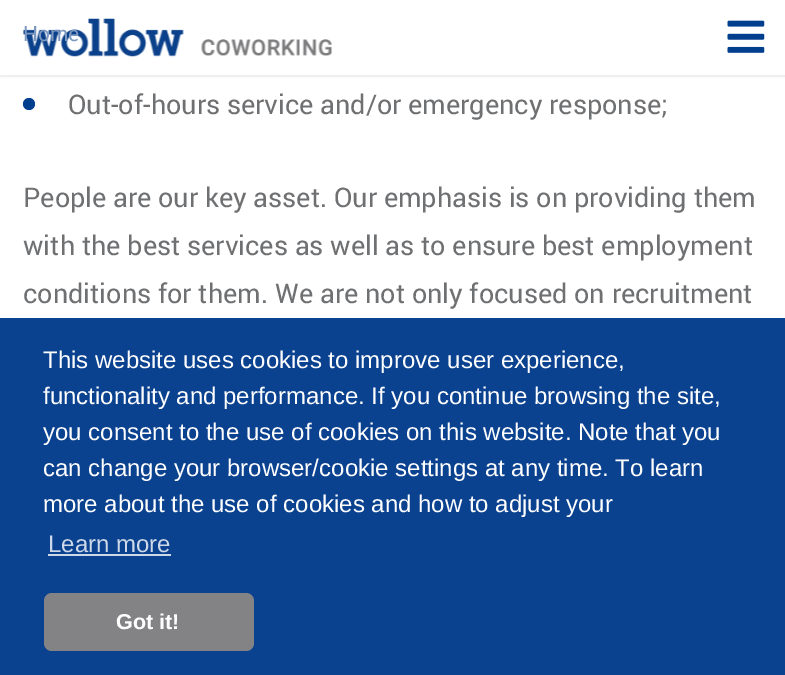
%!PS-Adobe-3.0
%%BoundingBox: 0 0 785 675
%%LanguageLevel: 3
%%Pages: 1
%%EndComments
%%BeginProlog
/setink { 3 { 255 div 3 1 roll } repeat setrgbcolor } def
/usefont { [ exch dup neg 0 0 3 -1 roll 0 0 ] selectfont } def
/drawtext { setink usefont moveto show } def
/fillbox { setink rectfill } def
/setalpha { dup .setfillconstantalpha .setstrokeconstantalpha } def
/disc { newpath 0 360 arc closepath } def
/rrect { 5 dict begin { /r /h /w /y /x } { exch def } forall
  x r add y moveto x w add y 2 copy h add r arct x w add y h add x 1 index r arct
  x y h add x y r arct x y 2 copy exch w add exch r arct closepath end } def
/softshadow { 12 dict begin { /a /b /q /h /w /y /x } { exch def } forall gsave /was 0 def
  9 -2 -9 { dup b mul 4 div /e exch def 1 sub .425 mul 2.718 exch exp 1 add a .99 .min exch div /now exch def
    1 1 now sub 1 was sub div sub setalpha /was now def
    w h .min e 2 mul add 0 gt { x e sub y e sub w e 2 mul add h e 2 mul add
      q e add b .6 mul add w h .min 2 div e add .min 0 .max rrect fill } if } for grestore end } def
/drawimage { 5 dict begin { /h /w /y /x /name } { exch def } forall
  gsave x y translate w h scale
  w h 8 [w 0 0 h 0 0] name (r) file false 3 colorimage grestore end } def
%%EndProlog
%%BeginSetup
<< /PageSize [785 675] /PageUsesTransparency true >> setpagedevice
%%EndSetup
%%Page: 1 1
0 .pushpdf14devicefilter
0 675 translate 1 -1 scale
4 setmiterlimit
0 0 785 675 255 255 255 fillbox
236 236 237 setink
0 2 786 75 0 1 1 softshadow
0 1 785 74 255 255 255 fillbox
(assets/img1.rgb) 22 18 310 39 drawimage
(Home) 23 41 /Roboto-Regular 21 124 152 192 drawtext
(assets/img2.rgb) 727 20 38 33 drawimage
0 62 142 setink
29 104 6 disc fill
(Out-of-hours service and/or emergency response;) 68 114 /Roboto-Regular 27 111 112 114 drawtext
(People are our key asset. Our emphasis is on providing them) 23 207 /Roboto-Regular 27 111 112 114 drawtext
(with the best services as well as to ensure best employment) 23 255 /Roboto-Regular 27 111 112 114 drawtext
(conditions for them. We are not only focused on recruitment) 23 303 /Roboto-Regular 27 111 112 114 drawtext
0 318 785 357 11 66 143 fillbox
(This website uses cookies to improve user experience,) 43 368 /LiberationSans-Regular 24 254 254 254 drawtext
(functionality and performance. If you continue browsing the site,) 43 404 /LiberationSans-Regular 24 254 254 254 drawtext
(you consent to the use of cookies on this website. Note that you) 43 440 /LiberationSans-Regular 24 254 254 254 drawtext
(can change your browser/cookie settings at any time. To learn) 43 476 /LiberationSans-Regular 24 254 254 254 drawtext
(more about the use of cookies and how to adjust your) 43 512 /LiberationSans-Regular 24 254 254 254 drawtext
(Learn more) 48 552 /LiberationSans-Regular 24 205 216 232 drawtext
48 554 123 2 205 216 232 fillbox
131 131 134 setink
44 593 210 58 8 rrect fill
(Got it!) 116 629 /LiberationSans-Bold 21.5 254 254 254 drawtext
.poppdf14devicefilter showpage
%%EOF
